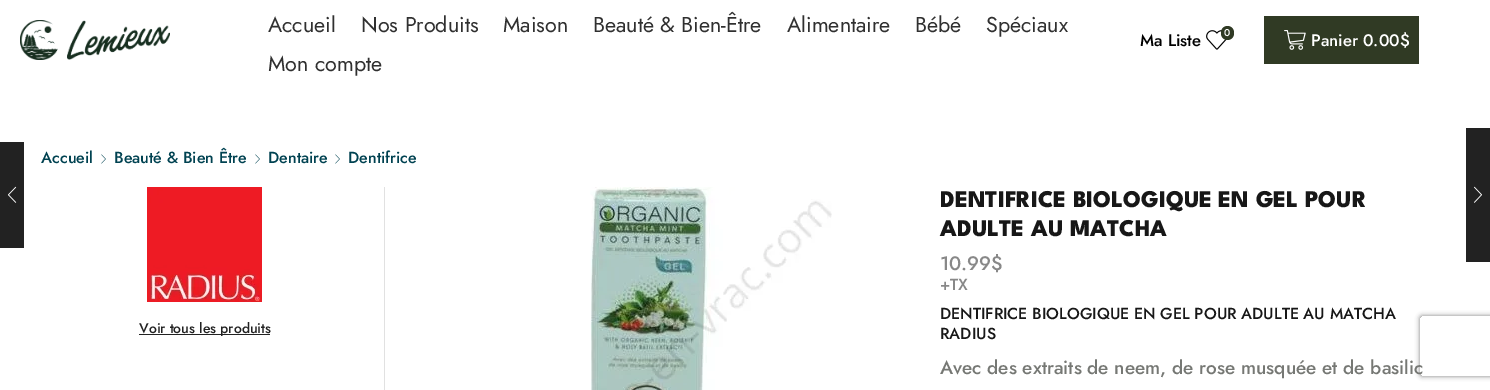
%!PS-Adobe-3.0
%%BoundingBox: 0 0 1490 390
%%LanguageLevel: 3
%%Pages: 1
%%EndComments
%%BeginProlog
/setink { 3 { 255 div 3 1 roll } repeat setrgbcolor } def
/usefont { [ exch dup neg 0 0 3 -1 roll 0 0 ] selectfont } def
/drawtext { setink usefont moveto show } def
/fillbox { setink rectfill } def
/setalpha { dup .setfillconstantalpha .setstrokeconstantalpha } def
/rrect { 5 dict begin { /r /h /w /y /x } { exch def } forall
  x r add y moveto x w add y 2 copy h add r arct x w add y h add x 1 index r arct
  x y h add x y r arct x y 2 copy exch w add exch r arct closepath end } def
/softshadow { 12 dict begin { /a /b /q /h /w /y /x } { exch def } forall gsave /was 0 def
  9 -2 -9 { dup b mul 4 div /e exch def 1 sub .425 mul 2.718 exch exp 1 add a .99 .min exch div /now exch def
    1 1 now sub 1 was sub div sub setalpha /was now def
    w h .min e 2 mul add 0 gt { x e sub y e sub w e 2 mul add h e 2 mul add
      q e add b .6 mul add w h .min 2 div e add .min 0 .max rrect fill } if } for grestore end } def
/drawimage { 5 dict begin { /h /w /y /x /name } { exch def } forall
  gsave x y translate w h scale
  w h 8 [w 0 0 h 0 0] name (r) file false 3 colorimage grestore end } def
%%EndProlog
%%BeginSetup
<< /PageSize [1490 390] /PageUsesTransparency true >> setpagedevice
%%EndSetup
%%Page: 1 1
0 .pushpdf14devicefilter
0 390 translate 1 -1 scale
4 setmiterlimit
0 0 1490 390 255 255 255 fillbox
(assets/img1.rgb) 20 20 150 40 drawimage
(Accueil) 268 32 /Jost-Regular 21.5 48 48 48 drawtext
(Nos Produits) 361 32 /Jost-Regular 21.5 48 48 48 drawtext
(Maison) 503 32 /Jost-Regular 21.5 48 48 48 drawtext
(Beauté & Bien-Être) 593 32 /Jost-Regular 21.5 48 48 48 drawtext
(Alimentaire) 787 32 /Jost-Regular 21.5 48 48 48 drawtext
(Bébé) 915 32 /Jost-Regular 21.5 48 48 48 drawtext
(Spéciaux) 986 32 /Jost-Regular 21.5 48 48 48 drawtext
(Mon compte) 268 71 /Jost-Regular 21.5 48 48 48 drawtext
(Ma Liste) 1140 46 /Jost-Medium 16.75 0 0 0 drawtext
(assets/img2.rgb) 1206 30 21 20 drawimage
48 58 36 setink
1221 26 13 14 6.5 rrect fill
(0) 1224 36 /Jost-Medium 10 255 255 255 drawtext
1264 16 155 48 48 58 36 fillbox
(assets/img3.rgb) 1284 30 22 20 drawimage
(Panier 0.00$) 1311 46 /Jost-Medium 16.75 255 255 255 drawtext
(Accueil) 41 163 /Jost-Medium 16 0 66 81 drawtext
(assets/img4.rgb) 101 154 5 10 drawimage
(Beauté & Bien Être) 114 163 /Jost-Medium 16 0 66 81 drawtext
(assets/img4.rgb) 255 154 5 10 drawimage
(Dentaire) 268 163 /Jost-Medium 16 0 66 81 drawtext
(assets/img4.rgb) 335 154 5 10 drawimage
(Dentifrice) 348 163 /Jost-Medium 16 0 66 81 drawtext
0 142 24 106 34 34 34 fillbox
(assets/img5.rgb) 8 186 9 17 drawimage
1466 128 24 134 34 34 34 fillbox
(assets/img6.rgb) 1474 186 8 17 drawimage
384 187 1 203 225 225 225 fillbox
(assets/img7.rgb) 147 187 115 115 drawimage
139 334 131 1 34 34 34 fillbox
(Voir tous les produits) 139 333 /Jost-Medium 14 34 34 34 drawtext
(assets/img8.rgb) 590 187 242 203 drawimage
(DENTIFRICE BIOLOGIQUE EN GEL POUR) 940 207 /LeagueSpartan-ExtraBold 24 23 23 23 drawtext
(ADULTE AU MATCHA) 940 236 /LeagueSpartan-ExtraBold 24 23 23 23 drawtext
(10.99$) 940 270 /Jost-Medium 19.5 136 136 136 drawtext
(+TX) 940 290 /Jost-Medium 16 136 136 136 drawtext
(DENTIFRICE BIOLOGIQUE EN GEL POUR ADULTE AU MATCHA) 940 319 /Jost-Medium 15.95 23 23 23 drawtext
(RADIUS) 940 339 /Jost-Medium 15.95 23 23 23 drawtext
gsave
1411 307 moveto 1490 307 lineto 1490 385 lineto 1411 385 lineto closepath 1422 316 moveto 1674 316 lineto 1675 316 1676 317 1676 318 curveto 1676 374 lineto 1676 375 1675 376 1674 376 curveto 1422 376 lineto 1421 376 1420 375 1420 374 curveto 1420 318 lineto 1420 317 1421 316 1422 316 curveto closepath eoclip newpath
128 128 128 setink
1420 316 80 60 2 2.5 1 softshadow
grestore
(Avec des extraits de neem, de rose musquée et de basilic) 940 374 /Jost-Medium 19 118 120 116 drawtext
.poppdf14devicefilter showpage
%%EOF
